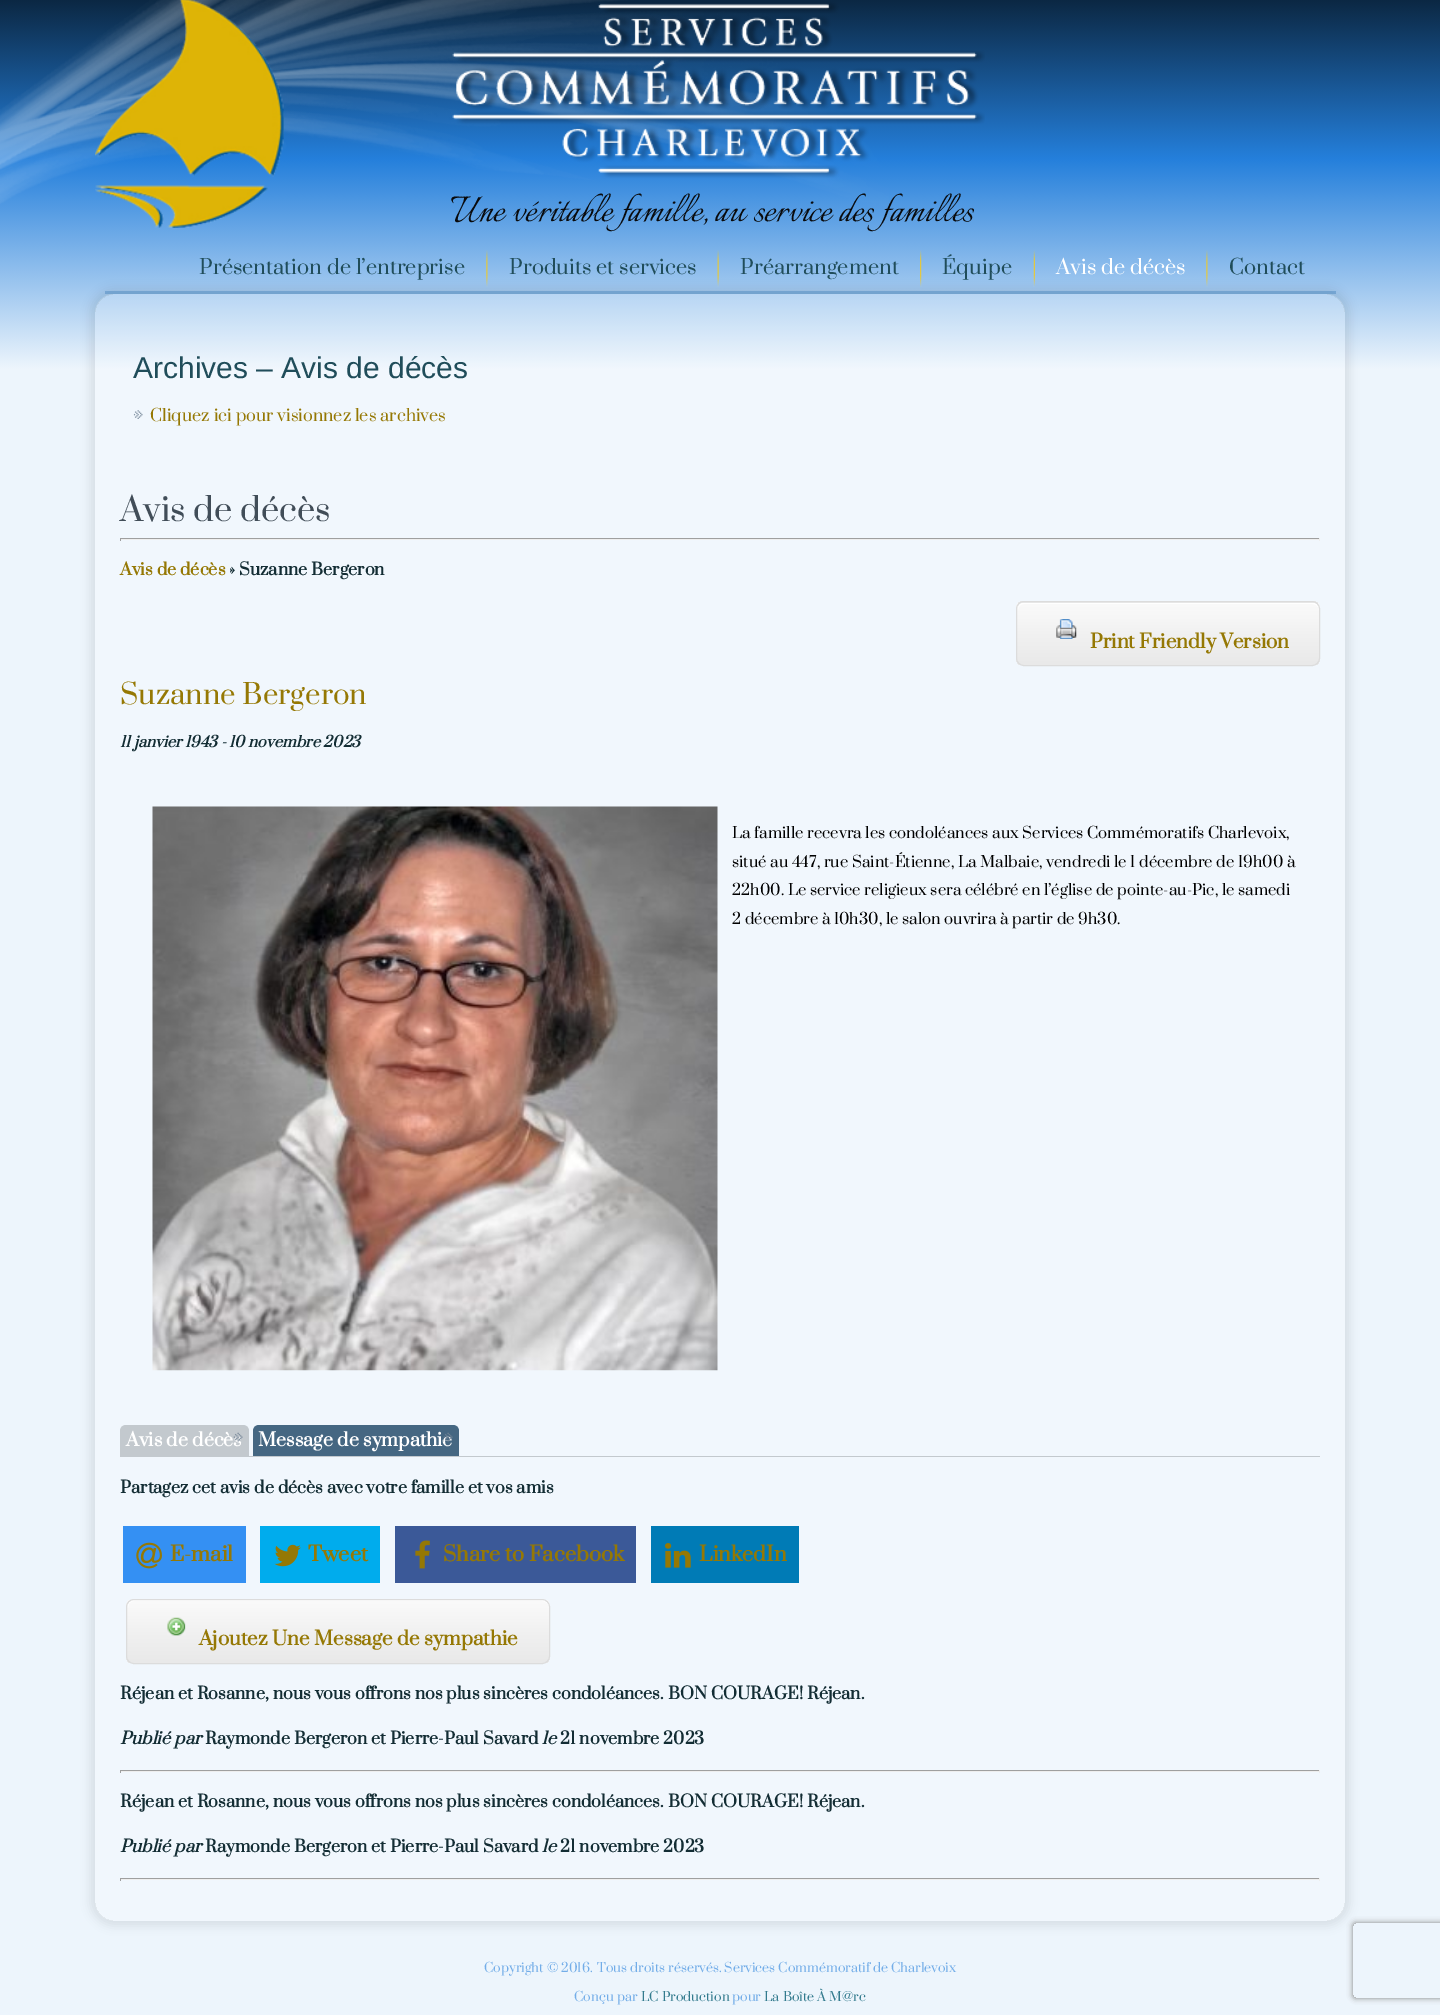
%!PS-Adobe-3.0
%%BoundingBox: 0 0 1440 2015
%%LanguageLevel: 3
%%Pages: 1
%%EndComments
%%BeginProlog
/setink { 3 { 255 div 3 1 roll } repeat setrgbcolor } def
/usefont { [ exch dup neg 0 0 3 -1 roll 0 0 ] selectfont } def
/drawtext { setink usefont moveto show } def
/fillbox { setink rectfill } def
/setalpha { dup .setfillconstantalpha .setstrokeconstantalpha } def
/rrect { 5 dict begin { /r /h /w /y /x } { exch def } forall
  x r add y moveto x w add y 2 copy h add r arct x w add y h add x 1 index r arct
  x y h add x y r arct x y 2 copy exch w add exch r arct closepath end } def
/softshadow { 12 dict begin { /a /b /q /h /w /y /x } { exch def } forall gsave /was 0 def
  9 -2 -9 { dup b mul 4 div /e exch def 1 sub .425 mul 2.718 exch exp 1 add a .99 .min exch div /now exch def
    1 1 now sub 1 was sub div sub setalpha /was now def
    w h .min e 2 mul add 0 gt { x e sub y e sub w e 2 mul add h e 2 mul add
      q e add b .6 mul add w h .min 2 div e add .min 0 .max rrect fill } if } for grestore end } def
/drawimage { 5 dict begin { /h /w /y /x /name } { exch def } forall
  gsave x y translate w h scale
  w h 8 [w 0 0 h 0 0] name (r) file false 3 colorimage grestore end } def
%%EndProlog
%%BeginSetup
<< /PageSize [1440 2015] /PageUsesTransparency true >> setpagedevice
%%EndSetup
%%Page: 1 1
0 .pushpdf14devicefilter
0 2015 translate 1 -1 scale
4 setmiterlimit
0 0 1440 2015 255 255 255 fillbox
(assets/img1.rgb) 0 0 1440 2015 drawimage
(assets/img2.rgb) 95 0 890 228 drawimage
(Une véritable famille, au service des familles) 451 221 /Italianno-Regular 45 9 10 12 drawtext
gsave
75 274 moveto 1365 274 lineto 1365 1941 lineto 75 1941 lineto closepath 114 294 moveto 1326 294 lineto 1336.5 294 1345 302.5 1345 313 curveto 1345 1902 lineto 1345 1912.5 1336.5 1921 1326 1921 curveto 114 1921 lineto 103.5 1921 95 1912.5 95 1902 curveto 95 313 lineto 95 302.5 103.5 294 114 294 curveto closepath eoclip newpath
0 0 0 setink
90 289 1260 1637 24 4.5 0.08 softshadow
grestore
0.25 setalpha
105 291 1231 3 0 84 158 fillbox
1 setalpha
(Présentation de l’entreprise) 199 274 /Prata-Regular 20 32 77 90 drawtext
(assets/img3.rgb) 486 250 2 37 drawimage
(Produits et services) 509 274 /Prata-Regular 20 32 77 90 drawtext
(assets/img4.rgb) 717 250 2 37 drawimage
(Préarrangement) 740 274 /Prata-Regular 20 32 77 90 drawtext
(assets/img5.rgb) 920 250 2 37 drawimage
(Équipe) 942 274 /Prata-Regular 20 32 77 90 drawtext
(assets/img6.rgb) 1033 250 2 37 drawimage
(Avis de décès) 1056 274 /Prata-Regular 20 255 255 255 drawtext
(assets/img7.rgb) 1206 250 2 37 drawimage
(Contact) 1229 274 /Prata-Regular 20 32 77 90 drawtext
0.2 setalpha
255 255 255 setink
95 294 1250 1627 19 rrect fill
1 setalpha
(Archives – Avis de décès) 133 378 /LiberationSans-Regular 30 32 77 90 drawtext
(assets/img8.rgb) 133 410 10 9 drawimage
(Cliquez ici pour visionnez les archives) 150 421 /Prata-Regular 16.25 149 120 4 drawtext
(Avis de décès) 120 521 /Prata-Regular 32.5 65 77 88 drawtext
120 538 1200 1 159 159 159 fillbox
1319 538 1 3 238 238 238 fillbox
120 539 1200 1 238 238 238 fillbox
120 538 1 3 159 159 159 fillbox
(Avis de décès) 120 575 /Prata-Bold 16.25 149 120 4 drawtext
(» Suzanne Bergeron) 229 575 /Prata-Bold 16.25 19 45 52 drawtext
gsave
1016 601 304 65 8 rrect clip newpath
gsave 1016 601 moveto 1320 601 lineto 1320 603 lineto 1016 603 lineto closepath clip newpath
<< /ShadingType 2 /ColorSpace /DeviceRGB /Coords [1168 540 1168 603] /Extend [true true] /Function << /FunctionType 3 /Domain [0 1] /Functions [<< /FunctionType 2 /Domain [0 1] /C0 [0.976 0.976 0.976] /C1 [0.976 0.976 0.976] /N 1 >> << /FunctionType 2 /Domain [0 1] /C0 [0.976 0.976 0.976] /C1 [0.914 0.914 0.914] /N 1 >>] /Bounds [0.05] /Encode [0 1 0 1] >> >> shfill grestore
gsave 1016 603 moveto 1320 603 lineto 1320 665 lineto 1016 665 lineto closepath clip newpath
<< /ShadingType 2 /ColorSpace /DeviceRGB /Coords [1168 603 1168 665] /Extend [true true] /Function << /FunctionType 3 /Domain [0 1] /Functions [<< /FunctionType 2 /Domain [0 1] /C0 [0.976 0.976 0.976] /C1 [0.976 0.976 0.976] /N 1 >> << /FunctionType 2 /Domain [0 1] /C0 [0.976 0.976 0.976] /C1 [0.914 0.914 0.914] /N 1 >>] /Bounds [0.05] /Encode [0 1 0 1] >> >> shfill grestore
grestore
255 255 255 setink
1024 604 moveto 1312 604 lineto 1316 604 1319 607 1319 610 curveto 1319 606 1317 603 1313 603 curveto 1024 603 lineto 1020 603 1018 606 1018 610 curveto 1018 607 1020 604 1024 604 curveto closepath fill
220 220 220 setink
1016.5 601.5 303 64 7.5 rrect stroke
(assets/img9.rgb) 1056 619 21 20 drawimage
(Print Friendly Version) 1090 648 /Prata-Bold 18.75 149 120 4 drawtext
(Suzanne Bergeron) 120 704 /Prata-Regular 27.5 149 120 4 drawtext
(11 janvier 1943 - 10 novembre 2023) 120 747 /Prata-BoldItalic 14.6 19 45 52 drawtext
(assets/img10.rgb) 152 806 566 565 drawimage
(La famille recevra les condoléances aux Services Commémoratifs Charlevoix,) 732 838 /Prata-Regular 15 0 0 0 drawtext
(situé au 447, rue Saint-Étienne, La Malbaie, vendredi le 1 décembre de 19h00 à) 732 867 /Prata-Regular 15 0 0 0 drawtext
(22h00. Le service religieux sera célébré en l’église de pointe-au-Pic, le samedi) 732 895 /Prata-Regular 15 0 0 0 drawtext
(2 décembre à 10h30, le salon ouvrira à partir de 9h30.) 732 924 /Prata-Regular 15 0 0 0 drawtext
195 201 206 setink
126 1425 moveto 243 1425 lineto 246.5 1425 249 1427.5 249 1431 curveto 249 1456 lineto 120 1456 lineto 120 1431 lineto 120 1427.5 122.5 1425 126 1425 curveto closepath fill
(Avis de décès) 126 1446 /Prata-Bold 17.9 255 255 255 drawtext
(assets/img11.rgb) 233 1432 10 10 drawimage
69 103 130 setink
259 1425 moveto 453 1425 lineto 456.5 1425 459 1427.5 459 1431 curveto 459 1456 lineto 253 1456 lineto 253 1431 lineto 253 1427.5 255.5 1425 259 1425 curveto closepath fill
(Message de sympathie) 258 1446 /Prata-Bold 17.9 255 255 255 drawtext
(assets/img12.rgb) 443 1432 10 10 drawimage
120 1456 1200 1 195 201 206 fillbox
(Partagez cet avis de décès avec votre famille et vos amis) 120 1493 /Prata-Bold 16.25 19 45 52 drawtext
123 1526 123 57 52 144 243 fillbox
(assets/img13.rgb) 136 1542 26 27 drawimage
(E-mail) 170 1561 /Prata-Bold 20 149 120 4 drawtext
260 1526 120 57 0 172 237 fillbox
(assets/img14.rgb) 274 1544 27 23 drawimage
(Tweet) 308 1561 /Prata-Bold 20 149 120 4 drawtext
395 1526 241 57 59 89 152 fillbox
(assets/img15.rgb) 415 1540 15 29 drawimage
(Share to Facebook) 443 1561 /Prata-Bold 20 149 120 4 drawtext
651 1526 148 57 0 123 182 fillbox
(assets/img16.rgb) 665 1543 26 25 drawimage
(LinkedIn) 699 1561 /Prata-Bold 20 149 120 4 drawtext
gsave
126 1599 424 65 8 rrect clip newpath
gsave 126 1600 moveto 550 1600 lineto 550 1663 lineto 126 1663 lineto closepath clip newpath
<< /ShadingType 2 /ColorSpace /DeviceRGB /Coords [338 1600 338 1663] /Extend [true true] /Function << /FunctionType 3 /Domain [0 1] /Functions [<< /FunctionType 2 /Domain [0 1] /C0 [0.976 0.976 0.976] /C1 [0.976 0.976 0.976] /N 1 >> << /FunctionType 2 /Domain [0 1] /C0 [0.976 0.976 0.976] /C1 [0.914 0.914 0.914] /N 1 >>] /Bounds [0.05] /Encode [0 1 0 1] >> >> shfill grestore
grestore
255 255 255 setink
134 1601 moveto 542 1601 lineto 546 1601 549 1604 549 1608 curveto 549 1606 lineto 549 1603 546 1600 543 1600 curveto 134 1600 lineto 131 1600 128 1603 128 1606 curveto 128 1608 lineto 128 1604 130 1601 134 1601 curveto closepath fill
220 220 220 setink
126.5 1599.5 423 64 7.5 rrect stroke
(assets/img17.rgb) 167 1617 19 19 drawimage
(Ajoutez Une Message de sympathie) 199 1645 /Prata-Bold 18.75 149 120 4 drawtext
(Réjean et Rosanne, nous vous offrons nos plus sincères condoléances. BON COURAGE! Réjean.) 120 1699 /Prata-Bold 16.25 19 45 52 drawtext
(Publié par) 120 1744 /Prata-BoldItalic 16.25 19 45 52 drawtext
(Raymonde Bergeron et Pierre-Paul Savard) 205 1744 /Prata-Bold 16.25 19 45 52 drawtext
(le) 542 1744 /Prata-BoldItalic 16.25 19 45 52 drawtext
(21 novembre 2023) 560 1744 /Prata-Bold 16.25 19 45 52 drawtext
120 1770 1200 1 159 159 159 fillbox
1319 1770 1 3 238 238 238 fillbox
120 1771 1200 1 238 238 238 fillbox
120 1770 1 3 159 159 159 fillbox
(Réjean et Rosanne, nous vous offrons nos plus sincères condoléances. BON COURAGE! Réjean.) 120 1807 /Prata-Bold 16.25 19 45 52 drawtext
(Publié par) 120 1852 /Prata-BoldItalic 16.25 19 45 52 drawtext
(Raymonde Bergeron et Pierre-Paul Savard) 205 1852 /Prata-Bold 16.25 19 45 52 drawtext
(le) 542 1852 /Prata-BoldItalic 16.25 19 45 52 drawtext
(21 novembre 2023) 560 1852 /Prata-Bold 16.25 19 45 52 drawtext
120 1878 1200 1 159 159 159 fillbox
1319 1878 1 3 238 238 238 fillbox
120 1879 1200 1 238 238 238 fillbox
120 1878 1 3 159 159 159 fillbox
(Copyright © 2016.) 484 1972 /Prata-Regular 12.5 115 173 232 drawtext
(Tous droits réservés. Services Commémoratif de Charlevoix) 597 1972 /Prata-Regular 12.5 115 173 232 drawtext
(Conçu par) 574 2001 /Prata-Regular 12.5 115 173 232 drawtext
(LC Production) 641 2001 /Prata-Regular 12.5 51 123 142 drawtext
(pour) 732 2001 /Prata-Regular 12.5 115 173 232 drawtext
(La Boîte À M@rc) 764 2001 /Prata-Regular 12.5 51 123 142 drawtext
gsave
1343 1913 moveto 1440 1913 lineto 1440 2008 lineto 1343 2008 lineto closepath 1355.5 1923 moveto 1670.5 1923 lineto 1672 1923 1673 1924 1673 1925.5 curveto 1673 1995.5 lineto 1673 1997 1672 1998 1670.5 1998 curveto 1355.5 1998 lineto 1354 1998 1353 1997 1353 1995.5 curveto 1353 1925.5 lineto 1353 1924 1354 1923 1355.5 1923 curveto closepath eoclip newpath
128 128 128 setink
1353 1923 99 75 2.5 3 1 softshadow
grestore
.poppdf14devicefilter showpage
%%EOF
